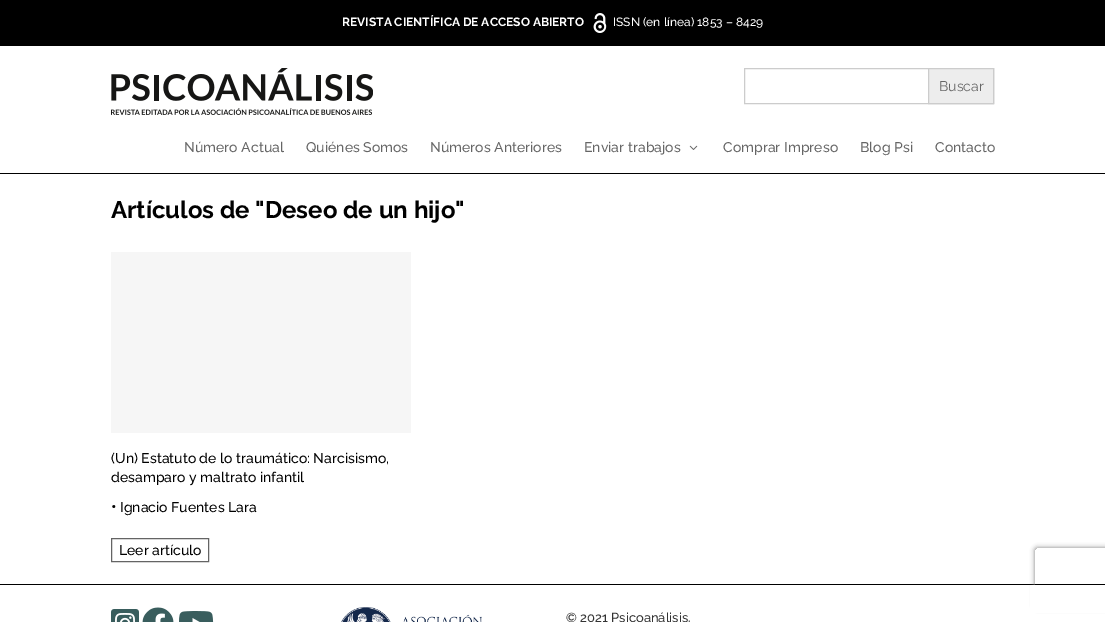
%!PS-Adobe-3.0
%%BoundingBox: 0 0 1105 622
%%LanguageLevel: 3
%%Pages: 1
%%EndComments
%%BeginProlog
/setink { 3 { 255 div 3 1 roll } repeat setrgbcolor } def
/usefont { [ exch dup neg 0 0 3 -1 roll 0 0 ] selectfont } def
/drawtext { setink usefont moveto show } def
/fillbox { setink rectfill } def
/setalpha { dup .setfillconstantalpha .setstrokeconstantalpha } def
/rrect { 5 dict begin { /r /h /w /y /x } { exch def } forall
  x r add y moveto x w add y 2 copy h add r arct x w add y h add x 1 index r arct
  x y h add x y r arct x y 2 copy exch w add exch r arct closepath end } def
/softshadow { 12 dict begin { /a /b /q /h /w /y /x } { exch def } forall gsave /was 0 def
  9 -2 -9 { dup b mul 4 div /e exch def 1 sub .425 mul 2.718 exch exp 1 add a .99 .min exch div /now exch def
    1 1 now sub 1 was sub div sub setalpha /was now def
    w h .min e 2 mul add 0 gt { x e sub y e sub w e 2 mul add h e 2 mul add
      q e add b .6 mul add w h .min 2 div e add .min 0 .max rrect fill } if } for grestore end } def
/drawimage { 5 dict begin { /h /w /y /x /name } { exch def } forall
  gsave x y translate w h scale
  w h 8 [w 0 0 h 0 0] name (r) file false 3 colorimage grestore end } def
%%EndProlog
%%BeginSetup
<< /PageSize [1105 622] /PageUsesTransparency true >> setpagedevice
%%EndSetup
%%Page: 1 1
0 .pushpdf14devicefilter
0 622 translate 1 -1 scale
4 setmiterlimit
0 0 1105 622 255 255 255 fillbox
0 0 1105 46 0 0 0 fillbox
(REVISTA CIENTÍFICA DE ACCESO ABIERTO) 342 26 /Raleway-Thin 12 255 255 255 drawtext
(assets/img1.rgb) 593 13 14 20 drawimage
(ISSN \(en línea\) 1853 – 8429) 613 26 /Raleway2-Thin 12 255 255 255 drawtext
0 173 1105 1 0 0 0 fillbox
(assets/img2.rgb) 111 68 262 47 drawimage
204 204 204 setink
744.5 68.5 249 35 rectstroke
237 237 237 setink
928.5 68.5 moveto 993.5 68.5 lineto 993.5 103.5 lineto 928.5 103.5 lineto closepath gsave fill grestore
204 204 204 setink
stroke
(Buscar) 939 91 /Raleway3-Thin 14 102 102 102 drawtext
(Número Actual) 184 152 /Raleway2-Thin 14 102 102 102 drawtext
(Quiénes Somos) 306 152 /Raleway2-Thin 14 102 102 102 drawtext
(Números Anteriores) 430 152 /Raleway2-Thin 14 102 102 102 drawtext
(Enviar trabajos) 584 152 /Raleway2-Thin 14 102 102 102 drawtext
(assets/img3.rgb) 689 145 9 5 drawimage
(Comprar Impreso) 723 152 /Raleway2-Thin 14 102 102 102 drawtext
(Blog Psi) 860 152 /Raleway2-Thin 14 102 102 102 drawtext
(Contacto) 935 152 /Raleway2-Thin 14 102 102 102 drawtext
(Artículos de "Deseo de un hijo") 111 218 /Raleway-Thin 24 0 0 0 drawtext
111 252 300 181 246 246 246 fillbox
(\(Un\) Estatuto de lo traumático: Narcisismo,) 111 463 /Raleway2-Thin 14 0 0 0 drawtext
(desamparo y maltrato infantil) 111 482 /Raleway2-Thin 14 0 0 0 drawtext
(•) 111 512 /Raleway2-Thin 16 0 0 0 drawtext
(Ignacio Fuentes Lara) 120 512 /Raleway2-Thin 14 0 0 0 drawtext
100 100 100 setink
111.5 538.5 97 23 rectstroke
(Leer artículo) 119 555 /Raleway2-Thin 14 0 0 0 drawtext
0 584 1105 1 0 0 0 fillbox
gsave
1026 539 moveto 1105 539 lineto 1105 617 lineto 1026 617 lineto closepath 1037 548 moveto 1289 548 lineto 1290 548 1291 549 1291 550 curveto 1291 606 lineto 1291 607 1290 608 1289 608 curveto 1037 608 lineto 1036 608 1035 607 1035 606 curveto 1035 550 lineto 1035 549 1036 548 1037 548 curveto closepath eoclip newpath
128 128 128 setink
1035 548 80 60 2 2.5 1 softshadow
grestore
1030 585 75 28 255 255 255 fillbox
(assets/img4.rgb) 111 609 28 13 drawimage
(assets/img5.rgb) 142 607 32 15 drawimage
(assets/img6.rgb) 179 611 35 11 drawimage
(assets/img7.rgb) 341 607 141 15 drawimage
(© 2021 Psicoanálisis.) 566 622 /Raleway2-Thin 13 51 51 51 drawtext
.poppdf14devicefilter showpage
%%EOF
